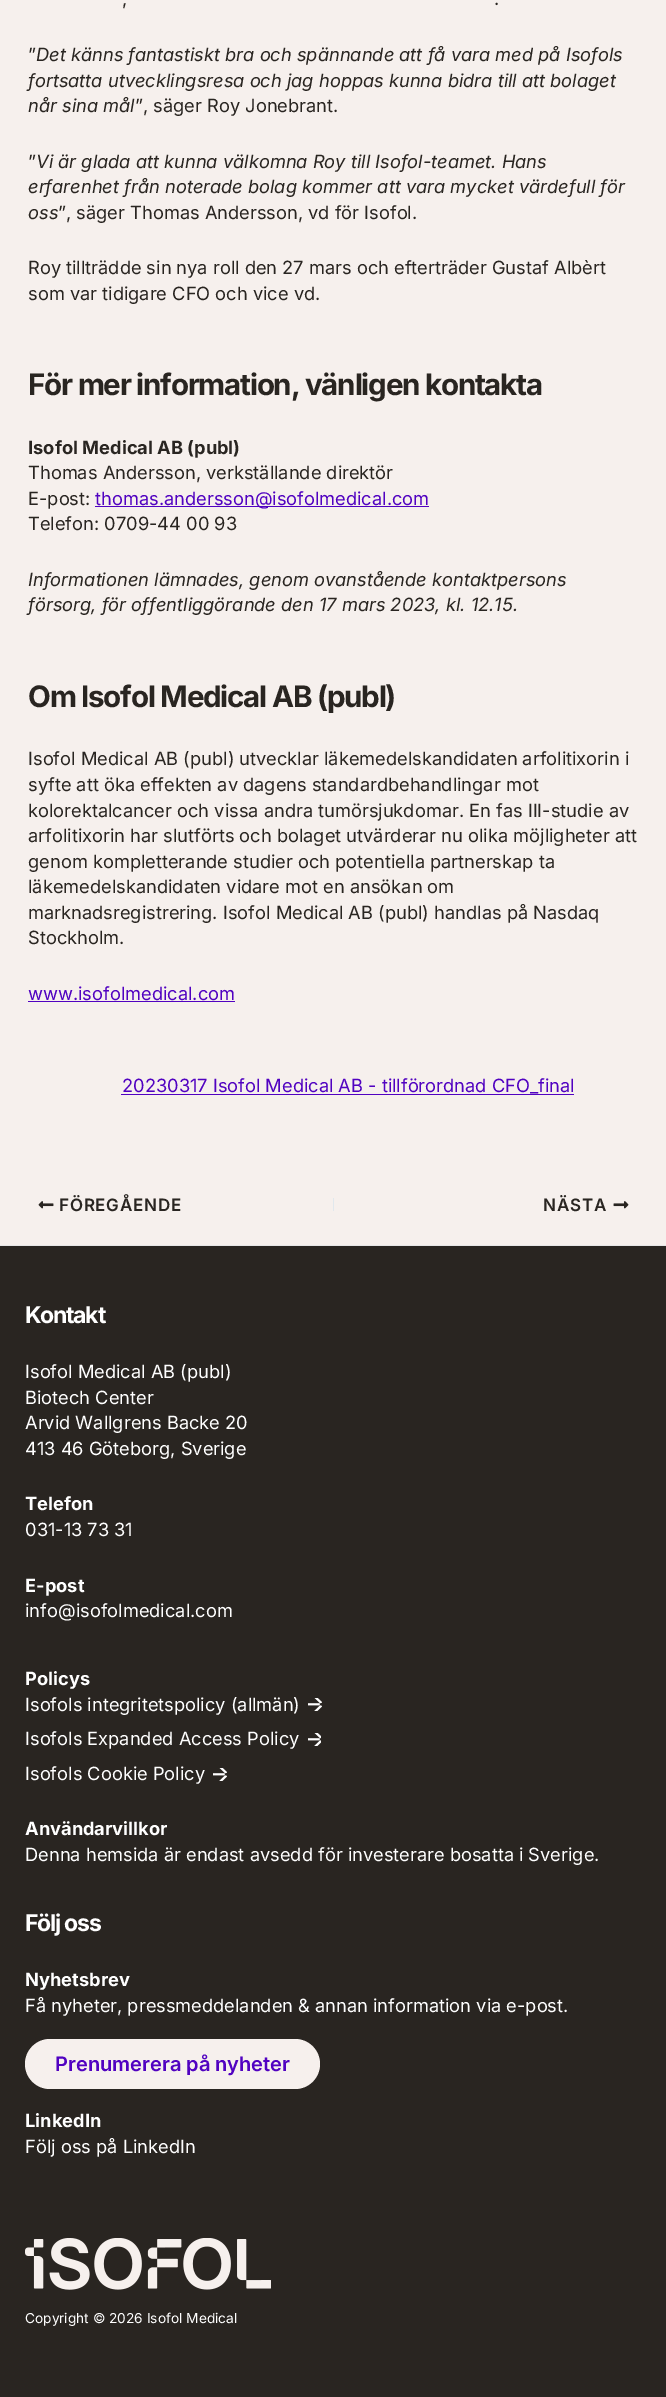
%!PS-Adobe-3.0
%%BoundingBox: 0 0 666 2397
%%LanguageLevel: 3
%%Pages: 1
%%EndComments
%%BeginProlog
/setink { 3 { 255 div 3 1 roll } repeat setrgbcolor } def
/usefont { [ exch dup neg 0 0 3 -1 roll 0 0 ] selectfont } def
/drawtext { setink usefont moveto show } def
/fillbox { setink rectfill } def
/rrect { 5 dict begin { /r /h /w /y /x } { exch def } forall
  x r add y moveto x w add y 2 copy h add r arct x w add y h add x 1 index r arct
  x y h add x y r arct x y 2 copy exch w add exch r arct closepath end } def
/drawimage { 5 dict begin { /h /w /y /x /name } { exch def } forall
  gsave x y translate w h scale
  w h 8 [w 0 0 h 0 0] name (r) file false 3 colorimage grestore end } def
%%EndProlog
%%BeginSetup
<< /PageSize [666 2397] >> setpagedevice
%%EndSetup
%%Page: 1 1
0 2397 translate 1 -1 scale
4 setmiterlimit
0 0 666 2397 246 240 237 fillbox
(,) 122 5 /Inter-Regular 18.25 41 37 33 drawtext
(.) 494 5 /Inter-Regular 18.25 41 37 33 drawtext
(”) 28 61 /Inter-Regular 18.25 41 37 33 drawtext
(Det känns fantastiskt bra och spännande att få vara med på Isofols) 36 61 /Inter-Italic 18.25 41 37 33 drawtext
(fortsatta utvecklingsresa och jag hoppas kunna bidra till att bolaget) 28 87 /Inter-Italic 18.25 41 37 33 drawtext
(når sina mål) 28 112 /Inter-Italic 18.25 41 37 33 drawtext
(”, säger Roy Jonebrant.) 135 112 /Inter-Regular 18.25 41 37 33 drawtext
(”) 28 168 /Inter-Regular 18.25 41 37 33 drawtext
(Vi är glada att kunna välkomna Roy till Isofol-teamet. Hans) 36 168 /Inter-Italic 18.25 41 37 33 drawtext
(erfarenhet från noterade bolag kommer att vara mycket värdefull för) 28 193 /Inter-Italic 18.25 41 37 33 drawtext
(oss) 28 219 /Inter-Italic 18.25 41 37 33 drawtext
(”, säger Thomas Andersson, vd för Isofol.) 58 219 /Inter-Regular 18.25 41 37 33 drawtext
(Roy tillträdde sin nya roll den 27 mars och efterträder Gustaf Albèrt) 28 274 /Inter-Regular 18.25 41 37 33 drawtext
(som var tidigare CFO och vice vd.) 28 300 /Inter-Regular 18.25 41 37 33 drawtext
/Inter-Bold 29.6 usefont
28 395 moveto -1.25 0 (För mer information, vänligen kontakta) ashow
(Isofol Medical AB \(publ\)) 28 454 /Inter-Bold 18.25 41 37 33 drawtext
(Thomas Andersson, verkställande direktör) 28 479 /Inter-Regular 18.25 41 37 33 drawtext
(E-post:) 28 505 /Inter-Regular 18.25 41 37 33 drawtext
95 506 334 1 81 2 193 fillbox
(thomas.andersson@isofolmedical.com) 95 505 /Inter-Regular 18.25 81 2 193 drawtext
(Telefon: 0709-44 00 93) 28 530 /Inter-Regular 18.25 41 37 33 drawtext
(Informationen lämnades, genom ovanstående kontaktpersons) 28 586 /Inter-Italic 18.25 41 37 33 drawtext
(försorg, för offentliggörande den 17 mars 2023, kl. 12.15.) 28 611 /Inter-Italic 18.25 41 37 33 drawtext
/Inter-Bold 29.6 usefont
28 707 moveto -1.25 0 (Om Isofol Medical AB \(publ\)) ashow
(Isofol Medical AB \(publ\) utvecklar läkemedelskandidaten arfolitixorin i) 28 765 /Inter-Regular 18.25 41 37 33 drawtext
(syfte att öka effekten av dagens standardbehandlingar mot) 28 791 /Inter-Regular 18.25 41 37 33 drawtext
(kolorektalcancer och vissa andra tumörsjukdomar. En fas III-studie av) 28 817 /Inter-Regular 18.25 41 37 33 drawtext
(arfolitixorin har slutförts och bolaget utvärderar nu olika möjligheter att) 28 842 /Inter-Regular 18.25 41 37 33 drawtext
(genom kompletterande studier och potentiella partnerskap ta) 28 868 /Inter-Regular 18.25 41 37 33 drawtext
(läkemedelskandidaten vidare mot en ansökan om) 28 893 /Inter-Regular 18.25 41 37 33 drawtext
(marknadsregistrering. Isofol Medical AB \(publ\) handlas på Nasdaq) 28 919 /Inter-Regular 18.25 41 37 33 drawtext
(Stockholm.) 28 944 /Inter-Regular 18.25 41 37 33 drawtext
(www.isofolmedical.com) 28 1000 /Inter-Regular 18.25 81 2 193 drawtext
28 1001 207 1 81 2 193 fillbox
(20230317 Isofol Medical AB - tillförordnad CFO_final) 122 1092 /Inter-Regular 18.25 81 2 193 drawtext
121 1094 453 1 81 2 193 fillbox
(assets/img1.rgb) 38 1201 16 8 drawimage
/Inter-SemiBold 17 usefont
41 37 33 setink
59 1211 moveto 0.75 0 (FÖREGÅENDE) ashow
333 1198 1 13 225 232 237 fillbox
41 37 33 setink
543 1211 moveto 0.75 0 (NÄSTA) ashow
(assets/img2.rgb) 613 1201 16 8 drawimage
0 1246 666 1151 41 37 33 fillbox
0 1245 666 1 230 230 230 fillbox
/Inter-Bold 23 usefont
255 255 255 setink
25 1323 moveto -1.25 0 (Kontakt) ashow
(Isofol Medical AB \(publ\)) 25 1378 /Inter-Regular 18.25 255 255 255 drawtext
(Biotech Center) 25 1404 /Inter-Regular 18.25 255 255 255 drawtext
(Arvid Wallgrens Backe 20) 25 1429 /Inter-Regular 18.25 255 255 255 drawtext
(413 46 Göteborg, Sverige) 25 1455 /Inter-Regular 18.25 255 255 255 drawtext
(Telefon) 25 1510 /Inter-Bold 18.25 255 255 255 drawtext
(031-13 73 31) 25 1536 /Inter-Regular 18.25 255 255 255 drawtext
(E-post) 25 1592 /Inter-Bold 18.25 255 255 255 drawtext
(info@isofolmedical.com) 25 1617 /Inter-Regular 18.25 255 255 255 drawtext
(Policys) 25 1685 /Inter-Bold 18.25 255 255 255 drawtext
(Isofols integritetspolicy \(allmän\)) 25 1711 /Inter-Regular 18.25 255 255 255 drawtext
(assets/img3.rgb) 308 1698 14 13 drawimage
(Isofols Expanded Access Policy) 25 1745 /Inter-Regular 18.25 255 255 255 drawtext
(assets/img4.rgb) 308 1733 13 13 drawimage
(Isofols Cookie Policy) 25 1780 /Inter-Regular 18.25 255 255 255 drawtext
(assets/img3.rgb) 213 1768 14 13 drawimage
(Användarvillkor) 25 1835 /Inter-Bold 18.25 255 255 255 drawtext
(Denna hemsida är endast avsedd för investerare bosatta i Sverige.) 25 1861 /Inter-Regular 18.25 255 255 255 drawtext
/Inter-Bold 23 usefont
25 1931 moveto -1.25 0 (Följ oss) ashow
(Nyhetsbrev) 25 1986 /Inter-Bold 18.25 255 255 255 drawtext
(Få nyheter, pressmeddelanden & annan information via e-post.) 25 2012 /Inter-Regular 18.25 255 255 255 drawtext
246 240 237 setink
25 2039 295 50 25 rrect fill
(Prenumerera på nyheter) 55 2071 /Inter-SemiBold 20 81 2 193 drawtext
(LinkedIn) 25 2127 /Inter-Bold 18.25 255 255 255 drawtext
(Följ oss på LinkedIn) 25 2153 /Inter-Regular 18.25 255 255 255 drawtext
(assets/img5.rgb) 25 2238 246 52 drawimage
(Copyright © 2026 Isofol Medical) 25 2323 /Inter-Regular 13.7 255 255 255 drawtext
showpage
%%EOF
